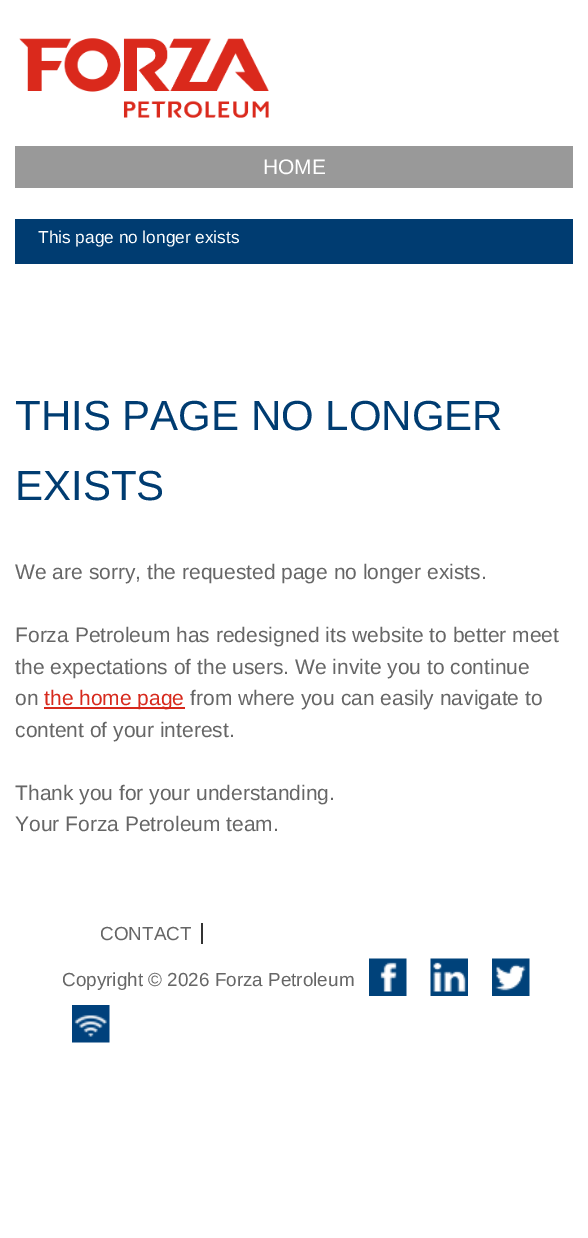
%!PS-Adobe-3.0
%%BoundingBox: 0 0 588 1238
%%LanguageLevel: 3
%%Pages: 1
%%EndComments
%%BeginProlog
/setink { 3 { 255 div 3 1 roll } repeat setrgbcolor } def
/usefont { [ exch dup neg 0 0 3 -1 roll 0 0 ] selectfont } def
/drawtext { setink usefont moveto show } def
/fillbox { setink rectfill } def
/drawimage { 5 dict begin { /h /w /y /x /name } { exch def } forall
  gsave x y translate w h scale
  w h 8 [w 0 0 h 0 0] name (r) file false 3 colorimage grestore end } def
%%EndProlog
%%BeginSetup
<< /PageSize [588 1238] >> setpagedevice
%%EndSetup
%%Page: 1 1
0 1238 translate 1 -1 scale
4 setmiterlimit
0 0 588 1238 255 255 255 fillbox
(assets/img1.rgb) 19 38 250 80 drawimage
15 146 558 42 153 153 153 fillbox
(HOME) 263 174 /LiberationSans-Regular 21 255 255 255 drawtext
15 219 558 45 0 60 113 fillbox
(This page no longer exists) 38 243 /LiberationSans-Regular 17.25 255 255 255 drawtext
(THIS PAGE NO LONGER) 15 430 /LiberationSans-Regular 42 0 60 113 drawtext
(EXISTS) 15 500 /LiberationSans-Regular 42 0 60 113 drawtext
(We are sorry, the requested page no longer exists.) 15 579 /LiberationSans-Regular 21 102 102 102 drawtext
(Forza Petroleum has redesigned its website to better meet) 15 642 /LiberationSans-Regular 21 102 102 102 drawtext
(the expectations of the users. We invite you to continue) 15 674 /LiberationSans-Regular 21 102 102 102 drawtext
(on) 15 705 /LiberationSans-Regular 21 102 102 102 drawtext
44 707 141 2 215 41 28 fillbox
(the home page) 44 705 /LiberationSans-Regular 21 215 41 28 drawtext
(from where you can easily navigate to) 190 705 /LiberationSans-Regular 21 102 102 102 drawtext
(content of your interest.) 15 737 /LiberationSans-Regular 21 102 102 102 drawtext
(Thank you for your understanding.) 15 800 /LiberationSans-Regular 21 102 102 102 drawtext
(Your Forza Petroleum team.) 15 831 /LiberationSans-Regular 21 102 102 102 drawtext
(CONTACT) 100 940 /LiberationSans-Regular 18.9 102 102 102 drawtext
201 923 2 21 51 51 51 fillbox
(Copyright © 2026 Forza Petroleum) 62 986 /LiberationSans-Regular 18.9 102 102 102 drawtext
(assets/img2.rgb) 369 958 38 38 drawimage
(assets/img3.rgb) 430 958 38 38 drawimage
(assets/img4.rgb) 492 958 38 38 drawimage
(assets/img5.rgb) 72 1005 38 38 drawimage
showpage
%%EOF
